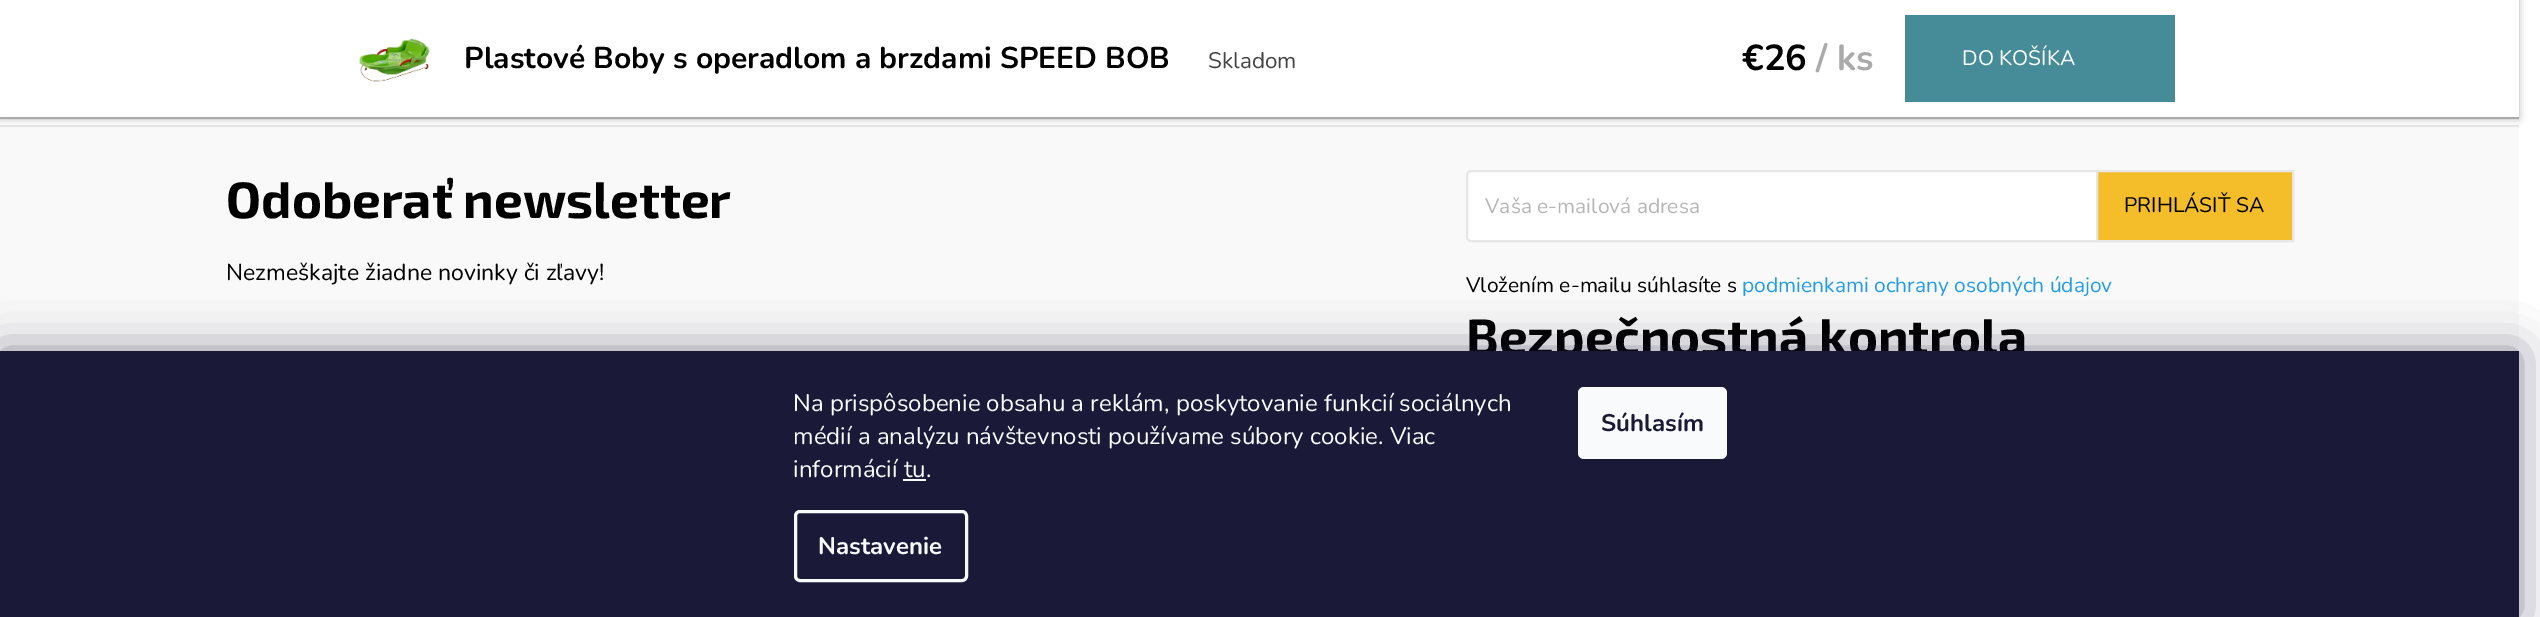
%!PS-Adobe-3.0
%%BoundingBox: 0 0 2540 617
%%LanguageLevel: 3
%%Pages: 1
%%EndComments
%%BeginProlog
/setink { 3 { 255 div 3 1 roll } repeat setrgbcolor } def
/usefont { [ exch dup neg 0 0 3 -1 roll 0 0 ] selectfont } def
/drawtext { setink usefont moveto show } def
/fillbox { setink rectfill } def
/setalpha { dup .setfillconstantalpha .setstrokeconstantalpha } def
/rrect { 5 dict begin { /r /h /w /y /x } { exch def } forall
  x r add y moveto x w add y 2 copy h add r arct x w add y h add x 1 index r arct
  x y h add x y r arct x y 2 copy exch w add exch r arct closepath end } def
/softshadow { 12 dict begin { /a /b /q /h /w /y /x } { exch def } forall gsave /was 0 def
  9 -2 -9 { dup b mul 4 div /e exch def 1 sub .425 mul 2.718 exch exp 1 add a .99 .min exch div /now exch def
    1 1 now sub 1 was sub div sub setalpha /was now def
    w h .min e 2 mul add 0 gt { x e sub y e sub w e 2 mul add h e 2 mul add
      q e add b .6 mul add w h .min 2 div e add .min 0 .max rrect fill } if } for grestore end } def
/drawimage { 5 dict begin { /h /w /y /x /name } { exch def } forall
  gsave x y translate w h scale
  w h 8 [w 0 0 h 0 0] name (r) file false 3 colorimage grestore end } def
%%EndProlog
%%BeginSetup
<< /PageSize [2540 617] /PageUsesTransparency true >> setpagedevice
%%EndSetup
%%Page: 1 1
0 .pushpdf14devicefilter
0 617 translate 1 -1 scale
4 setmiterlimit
0 0 2540 617 255 255 255 fillbox
0 127 2519 224 249 249 249 fillbox
0 125 2519 2 230 230 230 fillbox
180 180 180 setink
0 0 2519 119 0 4 1 softshadow
0 0 2519 117 255 255 255 fillbox
0 117 2519 2 170 170 170 fillbox
(assets/img1.rgb) 359 38 71 44 drawimage
(Plastové Boby s operadlom a brzdami SPEED BOB) 464 68 /Nunito-Bold 30 0 0 0 drawtext
(Skladom) 1208 68 /Nunito-Regular 22.5 69 69 69 drawtext
(€26) 1742 70 /Nunito-Bold 36 0 0 0 drawtext
(/ ks) 1816 70 /Nunito-Bold 36 170 170 170 drawtext
1905 15 270 87 70 140 152 fillbox
(DO KOŠÍKA) 1962 65 /Nunito-Regular 21 255 255 255 drawtext
(Odoberať newsletter) 226 218 /Exo2-Bold 51 0 0 0 drawtext
(Nezmeškajte žiadne novinky či zľavy!) 226 280 /Nunito-Regular 23.1 0 0 0 drawtext
255 255 255 setink
1467 171 826 70 4 rrect gsave fill grestore
230 230 230 setink
2 setlinewidth
stroke
(Vaša e-mailová adresa) 1485 213 /Nunito-Regular 21 182 182 182 drawtext
244 190 42 setink
2097 171 moveto 2293 171 lineto 2293 241 lineto 2097 241 lineto closepath gsave fill grestore
230 230 230 setink
stroke
(PRIHLÁSIŤ SA) 2124 212 /Nunito-Regular 21 0 0 0 drawtext
(Vložením e-mailu súhlasíte s) 1466 292 /Nunito-Regular 21 0 0 0 drawtext
(podmienkami ochrany osobných údajov) 1742 292 /Nunito-Regular 21 35 156 235 drawtext
(Bezpečnostná kontrola) 1466 355 /Exo2-Bold 51 0 0 0 drawtext
27 25 57 setink
0 351 2519 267 0 22.5 0.5 softshadow
0 351 2519 266 26 25 55 fillbox
(Na prispôsobenie obsahu a reklám, poskytovanie funkcií sociálnych) 793 411 /Nunito-Regular 24 248 250 251 drawtext
(médií a analýzu návštevnosti používame súbory cookie. Viac) 793 444 /Nunito-Regular 24 248 250 251 drawtext
(informácií tu.) 793 477 /Nunito-Regular 24 248 250 251 drawtext
903 479 23 2 248 250 251 fillbox
3 setlinewidth
795.5 511.5 171 69 4.5 rrect stroke
(Nastavenie) 818 554 /Nunito-Bold 24 248 250 251 drawtext
1578 387 149 72 6 rrect fill
(Súhlasím) 1601 431 /Nunito-Bold 24 26 25 55 drawtext
.poppdf14devicefilter showpage
%%EOF
